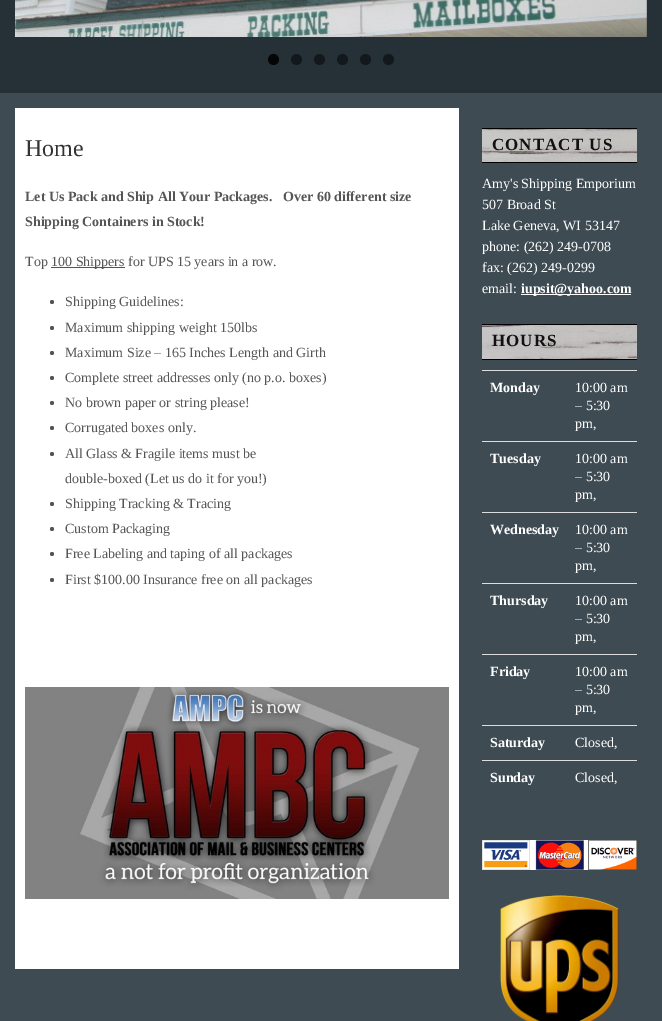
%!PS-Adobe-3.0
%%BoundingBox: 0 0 662 1021
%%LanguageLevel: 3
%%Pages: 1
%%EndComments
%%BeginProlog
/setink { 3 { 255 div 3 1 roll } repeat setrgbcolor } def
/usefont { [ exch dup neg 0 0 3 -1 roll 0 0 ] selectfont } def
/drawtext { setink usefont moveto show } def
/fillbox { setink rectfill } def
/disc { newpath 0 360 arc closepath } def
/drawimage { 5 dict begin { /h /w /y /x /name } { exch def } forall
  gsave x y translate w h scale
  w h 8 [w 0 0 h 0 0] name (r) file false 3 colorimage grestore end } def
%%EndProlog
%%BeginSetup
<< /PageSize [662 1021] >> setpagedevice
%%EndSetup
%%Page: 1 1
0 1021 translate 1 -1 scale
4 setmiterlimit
0 0 662 1021 38 48 55 fillbox
(assets/img1.rgb) 15 0 632 37 drawimage
4 5 6 setink
273.5 59.5 5.5 disc fill
19 24 28 setink
296.5 59.5 5.5 disc fill
319.5 59.5 5.5 disc fill
342.5 59.5 5.5 disc fill
365.5 59.5 5.5 disc fill
388.5 59.5 5.5 disc fill
0 93 662 928 62 75 83 fillbox
15 108 444 861 255 255 255 fillbox
(Home) 25 156 /LiberationSerif-Regular 24 51 51 51 drawtext
(Let Us Pack and Ship All Your Packages.   Over 60 different size) 25 201 /LiberationSerif-Bold 14 85 85 85 drawtext
(Shipping Containers in Stock!) 25 226 /LiberationSerif-Bold 14 85 85 85 drawtext
(Top) 25 266 /LiberationSerif-Regular 14 85 85 85 drawtext
51 267 74 1 85 85 85 fillbox
(100 Shippers for UPS 15 years in a row.) 51 266 /LiberationSerif-Regular 14 85 85 85 drawtext
52 302 2 disc fill
(Shipping Guidelines:) 65 306 /LiberationSerif-Regular 14 85 85 85 drawtext
52 328 2 disc fill
(Maximum shipping weight 150lbs) 65 332 /LiberationSerif-Regular 14 85 85 85 drawtext
52 353 2 disc fill
(Maximum Size – 165 Inches Length and Girth) 65 357 /LiberationSerif-Regular 14 85 85 85 drawtext
52 378 2 disc fill
(Complete street addresses only \(no p.o. boxes\)) 65 382 /LiberationSerif-Regular 14 85 85 85 drawtext
52 403 2 disc fill
(No brown paper or string please!) 65 407 /LiberationSerif-Regular 14 85 85 85 drawtext
52 428 2 disc fill
(Corrugated boxes only.) 65 432 /LiberationSerif-Regular 14 85 85 85 drawtext
52 454 2 disc fill
(All Glass & Fragile items must be) 65 458 /LiberationSerif-Regular 14 85 85 85 drawtext
(double-boxed \(Let us do it for you!\)) 65 483 /LiberationSerif-Regular 14 85 85 85 drawtext
52 504 2 disc fill
(Shipping Tracking & Tracing) 65 508 /LiberationSerif-Regular 14 85 85 85 drawtext
52 529 2 disc fill
(Custom Packaging) 65 533 /LiberationSerif-Regular 14 85 85 85 drawtext
52 554 2 disc fill
(Free Labeling and taping of all packages) 65 558 /LiberationSerif-Regular 14 85 85 85 drawtext
52 580 2 disc fill
(First $100.00 Insurance free on all packages) 65 584 /LiberationSerif-Regular 14 85 85 85 drawtext
(assets/img2.rgb) 25 687 424 212 drawimage
(assets/img3.rgb) 482 129 155 33 drawimage
482 128 155 1 0 0 0 fillbox
482 162 155 1 0 0 0 fillbox
/LiberationSerif-Bold 17 usefont
17 17 17 setink
492 150 moveto 1 0 (CONTACT US) ashow
(Amy's Shipping Emporium) 482 188 /LiberationSerif-Regular 14 255 255 255 drawtext
(507 Broad St) 482 209 /LiberationSerif-Regular 14 255 255 255 drawtext
(Lake Geneva, WI 53147) 482 230 /LiberationSerif-Regular 14 255 255 255 drawtext
(phone: \(262\) 249-0708) 482 251 /LiberationSerif-Regular 14 255 255 255 drawtext
(fax: \(262\) 249-0299) 482 272 /LiberationSerif-Regular 14 255 255 255 drawtext
(email:) 482 293 /LiberationSerif-Regular 14 255 255 255 drawtext
521 294 110 1 255 255 255 fillbox
(iupsit@yahoo.com) 521 293 /LiberationSerif-Bold 14 255 255 255 drawtext
(assets/img4.rgb) 482 325 155 34 drawimage
482 324 155 1 0 0 0 fillbox
482 359 155 1 0 0 0 fillbox
/LiberationSerif-Bold 17 usefont
17 17 17 setink
492 346 moveto 1 0 (HOURS) ashow
(Monday) 490 392 /LiberationSerif-Bold 14 255 255 255 drawtext
482 370 155 1 221 221 221 fillbox
(10:00 am) 575 392 /LiberationSerif-Regular 14 255 255 255 drawtext
(– 5:30) 575 410 /LiberationSerif-Regular 14 255 255 255 drawtext
(pm,) 575 428 /LiberationSerif-Regular 14 255 255 255 drawtext
(Tuesday) 490 463 /LiberationSerif-Bold 14 255 255 255 drawtext
482 441 155 1 221 221 221 fillbox
(10:00 am) 575 463 /LiberationSerif-Regular 14 255 255 255 drawtext
(– 5:30) 575 481 /LiberationSerif-Regular 14 255 255 255 drawtext
(pm,) 575 499 /LiberationSerif-Regular 14 255 255 255 drawtext
(Wednesday) 490 534 /LiberationSerif-Bold 14 255 255 255 drawtext
482 512 155 1 221 221 221 fillbox
(10:00 am) 575 534 /LiberationSerif-Regular 14 255 255 255 drawtext
(– 5:30) 575 552 /LiberationSerif-Regular 14 255 255 255 drawtext
(pm,) 575 570 /LiberationSerif-Regular 14 255 255 255 drawtext
(Thursday) 490 605 /LiberationSerif-Bold 14 255 255 255 drawtext
482 583 155 1 221 221 221 fillbox
(10:00 am) 575 605 /LiberationSerif-Regular 14 255 255 255 drawtext
(– 5:30) 575 623 /LiberationSerif-Regular 14 255 255 255 drawtext
(pm,) 575 641 /LiberationSerif-Regular 14 255 255 255 drawtext
(Friday) 490 676 /LiberationSerif-Bold 14 255 255 255 drawtext
482 654 155 1 221 221 221 fillbox
(10:00 am) 575 676 /LiberationSerif-Regular 14 255 255 255 drawtext
(– 5:30) 575 694 /LiberationSerif-Regular 14 255 255 255 drawtext
(pm,) 575 712 /LiberationSerif-Regular 14 255 255 255 drawtext
(Saturday) 490 747 /LiberationSerif-Bold 14 255 255 255 drawtext
482 725 155 1 221 221 221 fillbox
(Closed,) 575 747 /LiberationSerif-Regular 14 255 255 255 drawtext
(Sunday) 490 782 /LiberationSerif-Bold 14 255 255 255 drawtext
482 760 155 1 221 221 221 fillbox
(Closed,) 575 782 /LiberationSerif-Regular 14 255 255 255 drawtext
(assets/img5.rgb) 482 840 155 30 drawimage
(assets/img6.rgb) 500 895 119 126 drawimage
showpage
%%EOF
